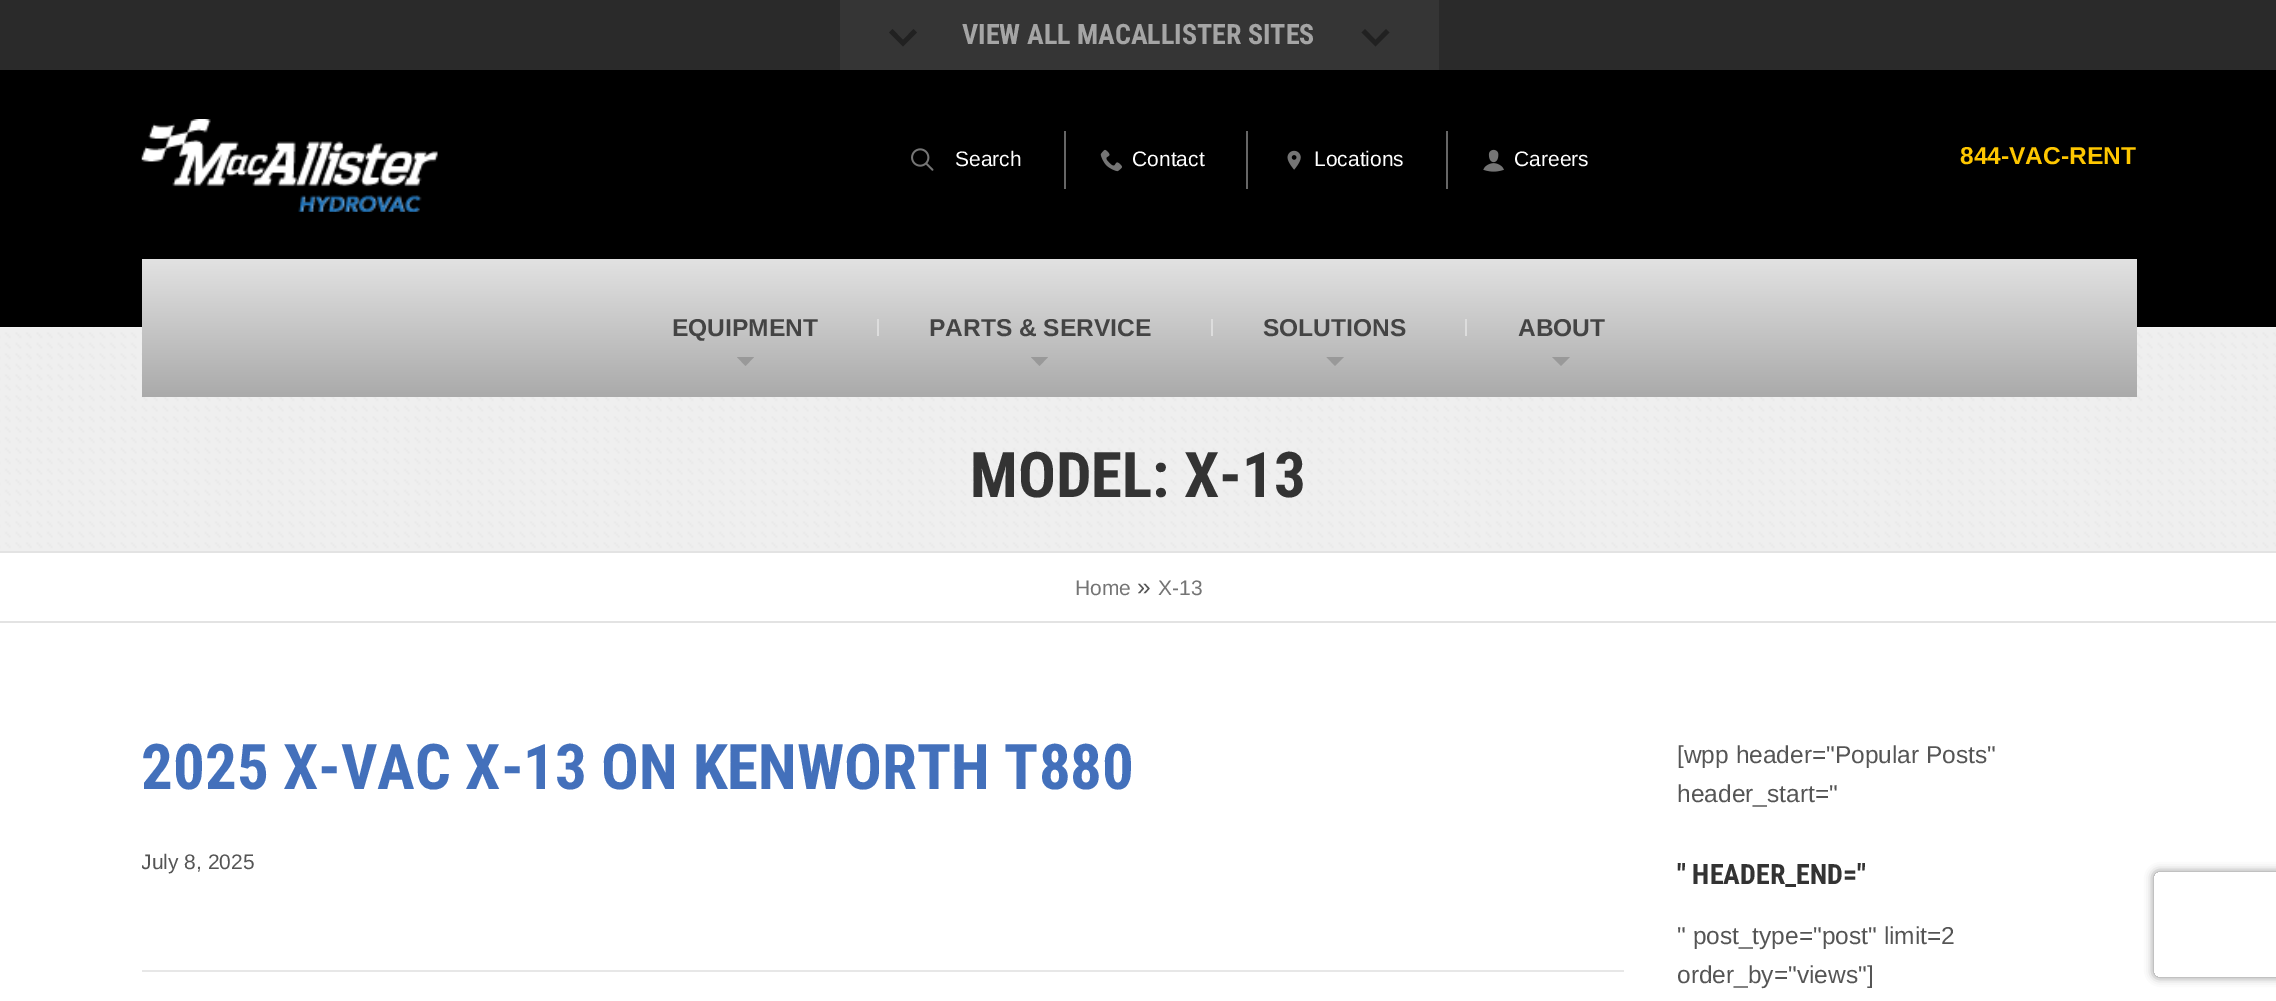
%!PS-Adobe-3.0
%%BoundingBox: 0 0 2276 1001
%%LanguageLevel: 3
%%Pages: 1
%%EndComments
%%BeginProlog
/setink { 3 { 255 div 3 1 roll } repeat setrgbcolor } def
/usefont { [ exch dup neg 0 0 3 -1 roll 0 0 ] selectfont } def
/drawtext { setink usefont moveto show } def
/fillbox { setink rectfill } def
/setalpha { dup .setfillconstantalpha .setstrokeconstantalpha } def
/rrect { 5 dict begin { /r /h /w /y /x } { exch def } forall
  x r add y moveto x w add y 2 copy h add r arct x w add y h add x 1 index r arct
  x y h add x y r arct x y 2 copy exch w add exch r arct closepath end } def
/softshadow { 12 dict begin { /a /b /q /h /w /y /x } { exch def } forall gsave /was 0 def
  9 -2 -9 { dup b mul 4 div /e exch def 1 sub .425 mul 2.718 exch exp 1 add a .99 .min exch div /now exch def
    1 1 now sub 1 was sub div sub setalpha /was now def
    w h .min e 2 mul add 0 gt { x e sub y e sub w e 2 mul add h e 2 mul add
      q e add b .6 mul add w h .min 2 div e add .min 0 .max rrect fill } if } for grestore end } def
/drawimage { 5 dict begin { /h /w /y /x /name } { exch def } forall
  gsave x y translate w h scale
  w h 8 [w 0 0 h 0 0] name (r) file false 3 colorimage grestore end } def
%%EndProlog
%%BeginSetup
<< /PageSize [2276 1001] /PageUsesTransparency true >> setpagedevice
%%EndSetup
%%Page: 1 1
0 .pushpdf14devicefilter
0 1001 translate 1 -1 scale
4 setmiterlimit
0 0 2276 1001 255 255 255 fillbox
0 0 2276 70 42 42 42 fillbox
840 0 599 70 53 53 53 fillbox
33 33 33 setink
892.5 29 moveto 903 40 lineto 913.5 29 lineto 917 32.5 lineto 903 46.5 lineto 889 32.5 lineto closepath fill
(VIEW ALL MACALLISTER SITES) 962 44 /RobotoCondensed-Bold 28 165 165 165 drawtext
33 33 33 setink
1365 29 moveto 1375.5 40 lineto 1386 29 lineto 1389.5 32.5 lineto 1375.5 46.5 lineto 1361.5 32.5 lineto closepath fill
0 70 2276 257 0 0 0 fillbox
(assets/img1.rgb) 141 119 297 93 drawimage
(assets/img2.rgb) 911 148 23 23 drawimage
(Search) 955 166 /LiberationSans-Regular 21 255 255 255 drawtext
1064 131 2 58 102 102 102 fillbox
(assets/img3.rgb) 1100 149 22 23 drawimage
(Contact) 1132 166 /LiberationSans-Regular 21 255 255 255 drawtext
1246 131 2 58 102 102 102 fillbox
(assets/img4.rgb) 1287 150 14 20 drawimage
(Locations) 1314 166 /LiberationSans-Regular 21 255 255 255 drawtext
1446 131 2 58 102 102 102 fillbox
(assets/img5.rgb) 1483 149 21 23 drawimage
(Careers) 1514 166 /LiberationSans-Regular 21 255 255 255 drawtext
(844-VAC-RENT) 1960 164 /LiberationSans-Bold 24.5 255 199 0 drawtext
(assets/img6.rgb) 0 327 2276 224 drawimage
gsave 142 259 moveto 2137 259 lineto 2137 397 lineto 142 397 lineto closepath clip newpath
<< /ShadingType 2 /ColorSpace /DeviceRGB /Coords [1139 259 1139 397] /Extend [true true] /Function << /FunctionType 2 /Domain [0 1] /C0 [0.886 0.886 0.886] /C1 [0.667 0.667 0.667] /N 1 >> >> shfill grestore
(EQUIPMENT) 672 336 /LiberationSans-Bold 24.5 68 68 68 drawtext
153 153 153 setink
737 357 moveto 754 357 lineto 745.5 366 lineto closepath fill
877 319 2 17 221 221 221 fillbox
(PARTS & SERVICE) 929 336 /LiberationSans-Bold 24.5 68 68 68 drawtext
153 153 153 setink
1031 357 moveto 1048 357 lineto 1039.5 366 lineto closepath fill
1211 319 2 17 221 221 221 fillbox
(SOLUTIONS) 1263 336 /LiberationSans-Bold 24.5 68 68 68 drawtext
153 153 153 setink
1326.5 357 moveto 1344 357 lineto 1335 366 lineto closepath fill
1465 319 2 17 221 221 221 fillbox
(ABOUT) 1518 336 /LiberationSans-Bold 24.5 68 68 68 drawtext
153 153 153 setink
1552 357 moveto 1570 357 lineto 1561 366 lineto closepath fill
(MODEL: X-13) 970 497 /RobotoCondensed-Bold 63 51 51 51 drawtext
0 551 2276 2 227 227 227 fillbox
0 621 2276 2 227 227 227 fillbox
(Home) 1075 595 /LiberationSans-Regular 21 116 116 116 drawtext
(») 1137 595 /LiberationSans-Regular 24.5 85 85 85 drawtext
(X-13) 1158 595 /LiberationSans-Regular 21 116 116 116 drawtext
142 970 1482 2 231 231 231 fillbox
(2025 X-VAC X-13 ON KENWORTH T880) 141 789 /RobotoCondensed-Bold 63 67 112 187 drawtext
gsave
142 735 1482 235 rectclip
(July 8, 2025) 141 869 /LiberationSans-Regular 21 85 85 85 drawtext
grestore
([wpp header="Popular Posts") 1677 763 /LiberationSans-Regular 24.5 85 85 85 drawtext
(header_start=") 1677 802 /LiberationSans-Regular 24.5 85 85 85 drawtext
(" HEADER_END=") 1677 884 /RobotoCondensed-Bold 28 51 51 51 drawtext
(" post_type="post" limit=2) 1677 944 /LiberationSans-Regular 24.5 85 85 85 drawtext
(order_by="views"]) 1677 983 /LiberationSans-Regular 24.5 85 85 85 drawtext
gsave
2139 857 moveto 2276 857 lineto 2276 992 lineto 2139 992 lineto closepath 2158 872 moveto 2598 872 lineto 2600 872 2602 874 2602 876 curveto 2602 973 lineto 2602 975 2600 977 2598 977 curveto 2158 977 lineto 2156 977 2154 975 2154 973 curveto 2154 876 lineto 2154 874 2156 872 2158 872 curveto closepath eoclip newpath
128 128 128 setink
2154 872 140 105 4 4.5 1 softshadow
grestore
.poppdf14devicefilter showpage
%%EOF
